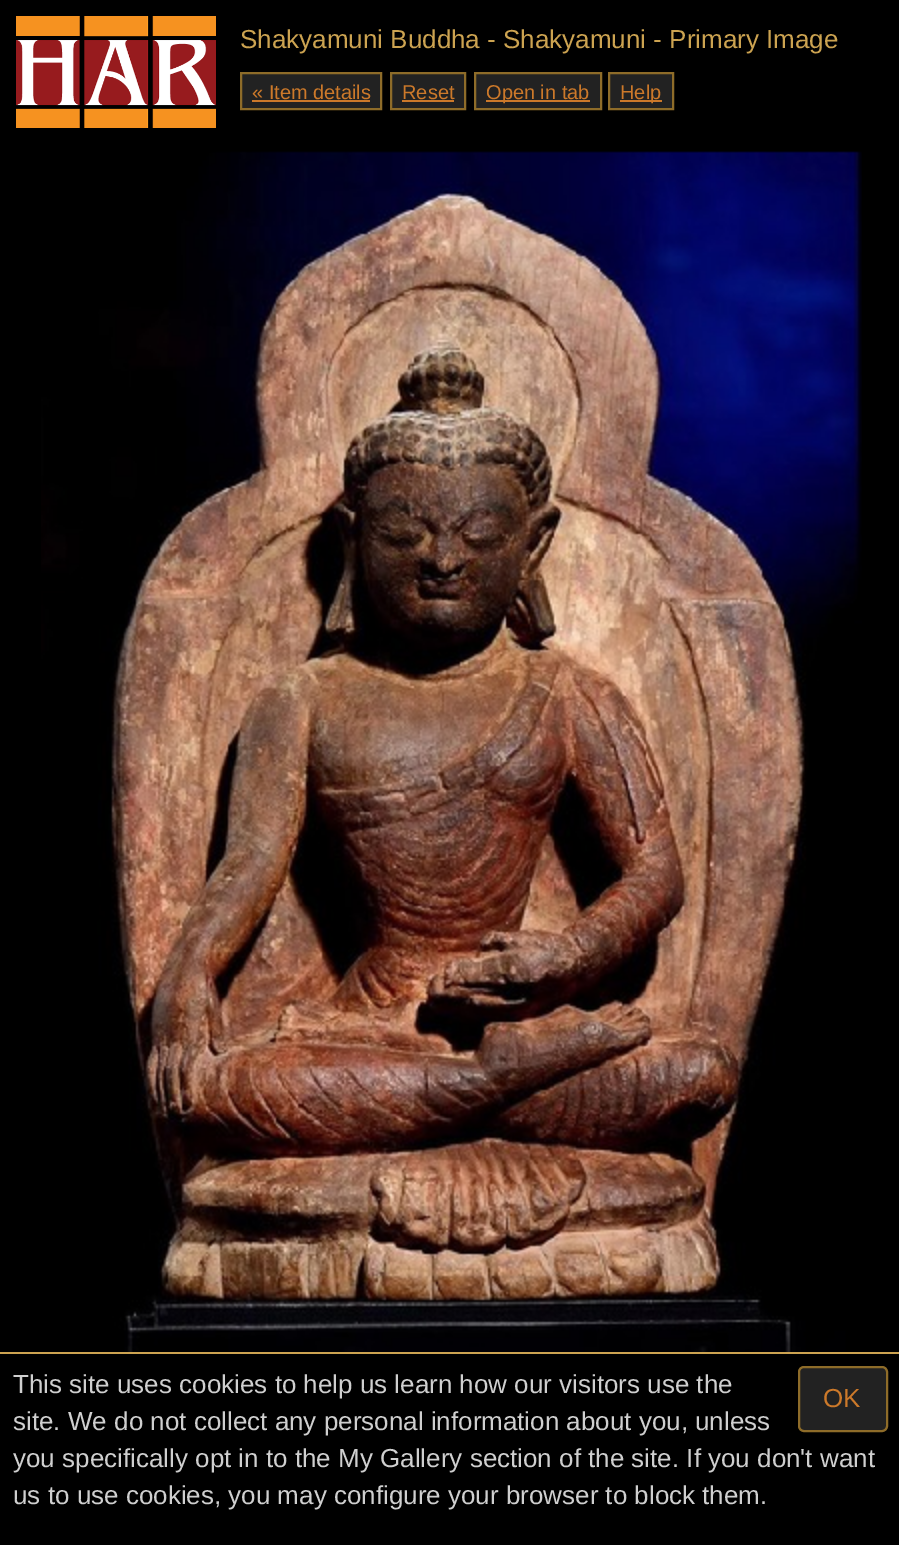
%!PS-Adobe-3.0
%%BoundingBox: 0 0 899 1545
%%LanguageLevel: 3
%%Pages: 1
%%EndComments
%%BeginProlog
/setink { 3 { 255 div 3 1 roll } repeat setrgbcolor } def
/usefont { [ exch dup neg 0 0 3 -1 roll 0 0 ] selectfont } def
/drawtext { setink usefont moveto show } def
/fillbox { setink rectfill } def
/rrect { 5 dict begin { /r /h /w /y /x } { exch def } forall
  x r add y moveto x w add y 2 copy h add r arct x w add y h add x 1 index r arct
  x y h add x y r arct x y 2 copy exch w add exch r arct closepath end } def
/drawimage { 5 dict begin { /h /w /y /x /name } { exch def } forall
  gsave x y translate w h scale
  w h 8 [w 0 0 h 0 0] name (r) file false 3 colorimage grestore end } def
%%EndProlog
%%BeginSetup
<< /PageSize [899 1545] >> setpagedevice
%%EndSetup
%%Page: 1 1
0 1545 translate 1 -1 scale
4 setmiterlimit
0 0 899 1545 0 0 0 fillbox
(assets/img1.rgb) 16 16 200 112 drawimage
(Shakyamuni Buddha - Shakyamuni - Primary Image) 240 48 /LiberationSans-Regular 26 204 163 81 drawtext
34 34 34 setink
241 73 moveto 381 73 lineto 381 109 lineto 241 109 lineto closepath gsave fill grestore
142 108 41 setink
2 setlinewidth
stroke
(« Item details) 252 99 /LiberationSans-Regular 20 204 121 42 drawtext
252 100 118 2 204 121 42 fillbox
34 34 34 setink
391 73 moveto 465 73 lineto 465 109 lineto 391 109 lineto closepath gsave fill grestore
142 108 41 setink
stroke
(Reset) 402 99 /LiberationSans-Regular 20 204 121 42 drawtext
402 100 52 2 204 121 42 fillbox
34 34 34 setink
475 73 moveto 601 73 lineto 601 109 lineto 475 109 lineto closepath gsave fill grestore
142 108 41 setink
stroke
486 100 104 2 204 121 42 fillbox
(Open in tab) 486 99 /LiberationSans-Regular 20 204 121 42 drawtext
34 34 34 setink
609 73 moveto 673 73 lineto 673 109 lineto 609 109 lineto closepath gsave fill grestore
142 108 41 setink
stroke
620 100 42 2 204 121 42 fillbox
(Help) 620 99 /LiberationSans-Regular 20 204 121 42 drawtext
(assets/img2.rgb) 41 151 821 1201 drawimage
0 1352 899 2 204 163 81 fillbox
(This site uses cookies to help us learn how our visitors use the) 13 1393 /LiberationSans-Regular 26 207 207 207 drawtext
(site. We do not collect any personal information about you, unless) 13 1430 /LiberationSans-Regular 26 207 207 207 drawtext
(you specifically opt in to the My Gallery section of the site. If you don't want) 13 1467 /LiberationSans-Regular 26 207 207 207 drawtext
(us to use cookies, you may configure your browser to block them.) 13 1504 /LiberationSans-Regular 26 207 207 207 drawtext
34 34 34 setink
799 1367 88 64 5 rrect gsave fill grestore
142 108 41 setink
stroke
(OK) 823 1407 /LiberationSans-Regular 26 204 121 42 drawtext
showpage
%%EOF
